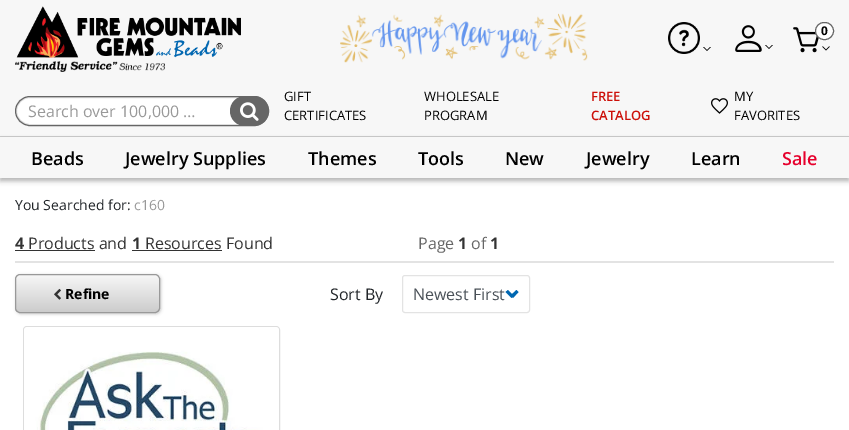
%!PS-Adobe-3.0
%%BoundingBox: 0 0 849 430
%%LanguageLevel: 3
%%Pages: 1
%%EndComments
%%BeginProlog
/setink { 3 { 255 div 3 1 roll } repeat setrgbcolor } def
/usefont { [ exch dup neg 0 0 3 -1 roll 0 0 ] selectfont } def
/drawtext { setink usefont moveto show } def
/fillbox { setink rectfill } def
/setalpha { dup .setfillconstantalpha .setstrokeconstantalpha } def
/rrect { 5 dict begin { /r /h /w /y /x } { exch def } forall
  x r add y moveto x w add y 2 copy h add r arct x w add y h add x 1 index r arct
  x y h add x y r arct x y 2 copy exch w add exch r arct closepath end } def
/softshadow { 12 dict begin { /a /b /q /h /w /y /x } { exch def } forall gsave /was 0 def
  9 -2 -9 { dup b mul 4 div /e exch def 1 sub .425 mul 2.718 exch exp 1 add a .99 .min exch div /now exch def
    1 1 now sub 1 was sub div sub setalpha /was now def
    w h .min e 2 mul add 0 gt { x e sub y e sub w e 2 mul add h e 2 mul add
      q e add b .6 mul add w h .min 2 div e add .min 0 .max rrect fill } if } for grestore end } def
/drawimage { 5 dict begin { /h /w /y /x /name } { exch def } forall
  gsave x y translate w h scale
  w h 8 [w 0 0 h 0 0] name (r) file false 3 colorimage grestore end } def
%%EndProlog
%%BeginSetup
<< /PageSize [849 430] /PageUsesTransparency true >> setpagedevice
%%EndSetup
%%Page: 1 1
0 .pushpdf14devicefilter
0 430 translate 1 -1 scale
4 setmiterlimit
0 0 849 430 255 255 255 fillbox
0 0 849 178 247 247 247 fillbox
(assets/img1.rgb) 16 6 225 52 drawimage
(assets/img2.rgb) 15 61 150 11 drawimage
(assets/img3.rgb) 340 13 248 50 drawimage
(assets/img4.rgb) 668 22 32 32 drawimage
0 0 0 setink
711 47 moveto 707 51 lineto 707 50 lineto 710 47 lineto closepath 707 51 moveto 703 47 lineto 704 47 lineto 707 50 lineto closepath fill
(assets/img5.rgb) 735 25 27 27 drawimage
773 45 moveto 769 49 lineto 769 48 lineto 772 45 lineto closepath 769 49 moveto 765 45 lineto 766 45 lineto 769 48 lineto closepath fill
(assets/img6.rgb) 793 27 26 26 drawimage
255 255 255 setink
815.5 22.5 18 17 8.5 rrect gsave fill grestore
102 102 102 setink
stroke
(0) 821 35 /OpenSans-Bold 12 0 0 0 drawtext
830 46.5 moveto 826 50.5 lineto 826 49.5 lineto 829 46.5 lineto closepath 826 50.5 moveto 822 46.5 lineto 823 46.5 lineto 826 49.5 lineto closepath fill
0 136 849 1 204 204 204 fillbox
255 255 255 setink
16.5 97.5 251 27 13.5 rrect gsave fill grestore
221 221 221 setink
stroke
102 102 102 setink
15.5 96.5 253 29 14.5 rrect stroke
(Search over 100,000 …) 28 117 /OpenSans-Regular 16 153 153 153 drawtext
102 102 102 setink
230 96 39 30 15 rrect fill
(assets/img7.rgb) 240 102 19 19 drawimage
(GIFT) 284 101 /OpenSans-Regular 13 0 0 0 drawtext
(CERTIFICATES) 284 120 /OpenSans-Regular 13 0 0 0 drawtext
(WHOLESALE) 424 101 /OpenSans-Regular 13 0 0 0 drawtext
(PROGRAM) 424 120 /OpenSans-Regular 13 0 0 0 drawtext
(FREE) 591 101 /OpenSans-SemiBold 13 204 15 8 drawtext
(CATALOG) 591 120 /OpenSans-SemiBold 13 204 15 8 drawtext
(MY) 734 101 /OpenSans-Regular 13 0 0 0 drawtext
(assets/img8.rgb) 711 98 17 16 drawimage
(FAVORITES) 734 120 /OpenSans-Regular 13 0 0 0 drawtext
gsave
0 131 moveto 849 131 lineto 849 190 lineto 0 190 lineto closepath 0 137 moveto 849 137 lineto 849 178 lineto 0 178 lineto closepath eoclip newpath
0 140 849 41 0 2.5 0.3 softshadow
grestore
(Beads) 31 165 /OpenSans-SemiBold 18 0 0 0 drawtext
(Jewelry Supplies) 125 165 /OpenSans-SemiBold 18 0 0 0 drawtext
(Themes) 308 165 /OpenSans-SemiBold 18 0 0 0 drawtext
(Tools) 418 165 /OpenSans-SemiBold 18 0 0 0 drawtext
(New) 505 165 /OpenSans-SemiBold 18 0 0 0 drawtext
(Jewelry) 586 165 /OpenSans-SemiBold 18 0 0 0 drawtext
(Learn) 691 165 /OpenSans-SemiBold 18 0 0 0 drawtext
(Sale) 782 165 /OpenSans-SemiBold 18 230 0 44 drawtext
(You Searched for:) 15 210 /OpenSans-Regular 14 33 37 41 drawtext
(c160) 134 210 /OpenSans-Regular 14 153 153 153 drawtext
15 261 819 2 227 227 227 fillbox
(4) 15 249 /OpenSans-Bold 16 51 51 51 drawtext
15 250 80 1 51 51 51 fillbox
(Products and) 28 249 /OpenSans-Regular 16 51 51 51 drawtext
(1) 132 249 /OpenSans-Bold 16 51 51 51 drawtext
132 250 90 1 51 51 51 fillbox
(Resources Found) 145 249 /OpenSans-Regular 16 51 51 51 drawtext
(Page) 418 249 /OpenSans-Regular 16 102 102 102 drawtext
(1) 458 249 /OpenSans-Bold 16 51 51 51 drawtext
(of) 471 249 /OpenSans-Regular 16 102 102 102 drawtext
(1) 490 249 /OpenSans-Bold 16 51 51 51 drawtext
0 0 0 setink
16 275 145 39 5 1.5 0.2 softshadow
gsave
15 274 145 39 5 rrect clip newpath
gsave 15 275 moveto 160 275 lineto 160 312 lineto 15 312 lineto closepath clip newpath
<< /ShadingType 2 /ColorSpace /DeviceRGB /Coords [88 275 88 312] /Extend [true true] /Function << /FunctionType 2 /Domain [0 1] /C0 [0.969 0.969 0.969] /C1 [0.8 0.8 0.8] /N 1 >> >> shfill grestore
grestore
153 153 153 setink
15.5 274.5 144 38 4.5 rrect stroke
(assets/img9.rgb) 54 288 7 12 drawimage
(Refine) 65 299 /OpenSans-Bold 14 0 0 0 drawtext
(Sort By) 330 300 /OpenSans-Regular 16 33 37 41 drawtext
0 103 177 setink
510.5 295.5 moveto 516.5 290 lineto 518.5 292 lineto 513 298 lineto closepath fill
505.5 292 moveto 508 290 lineto 513.5 295.5 lineto 511.5 298 lineto closepath fill
227 227 227 setink
402.5 275.5 127 37 2.5 rrect stroke
(Newest First) 413 300 /OpenSans-Regular 16 73 80 87 drawtext
221 221 221 setink
23.5 326.5 256 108 3.5 rrect stroke
(assets/img10.rgb) 24 327 255 103 drawimage
.poppdf14devicefilter showpage
%%EOF
